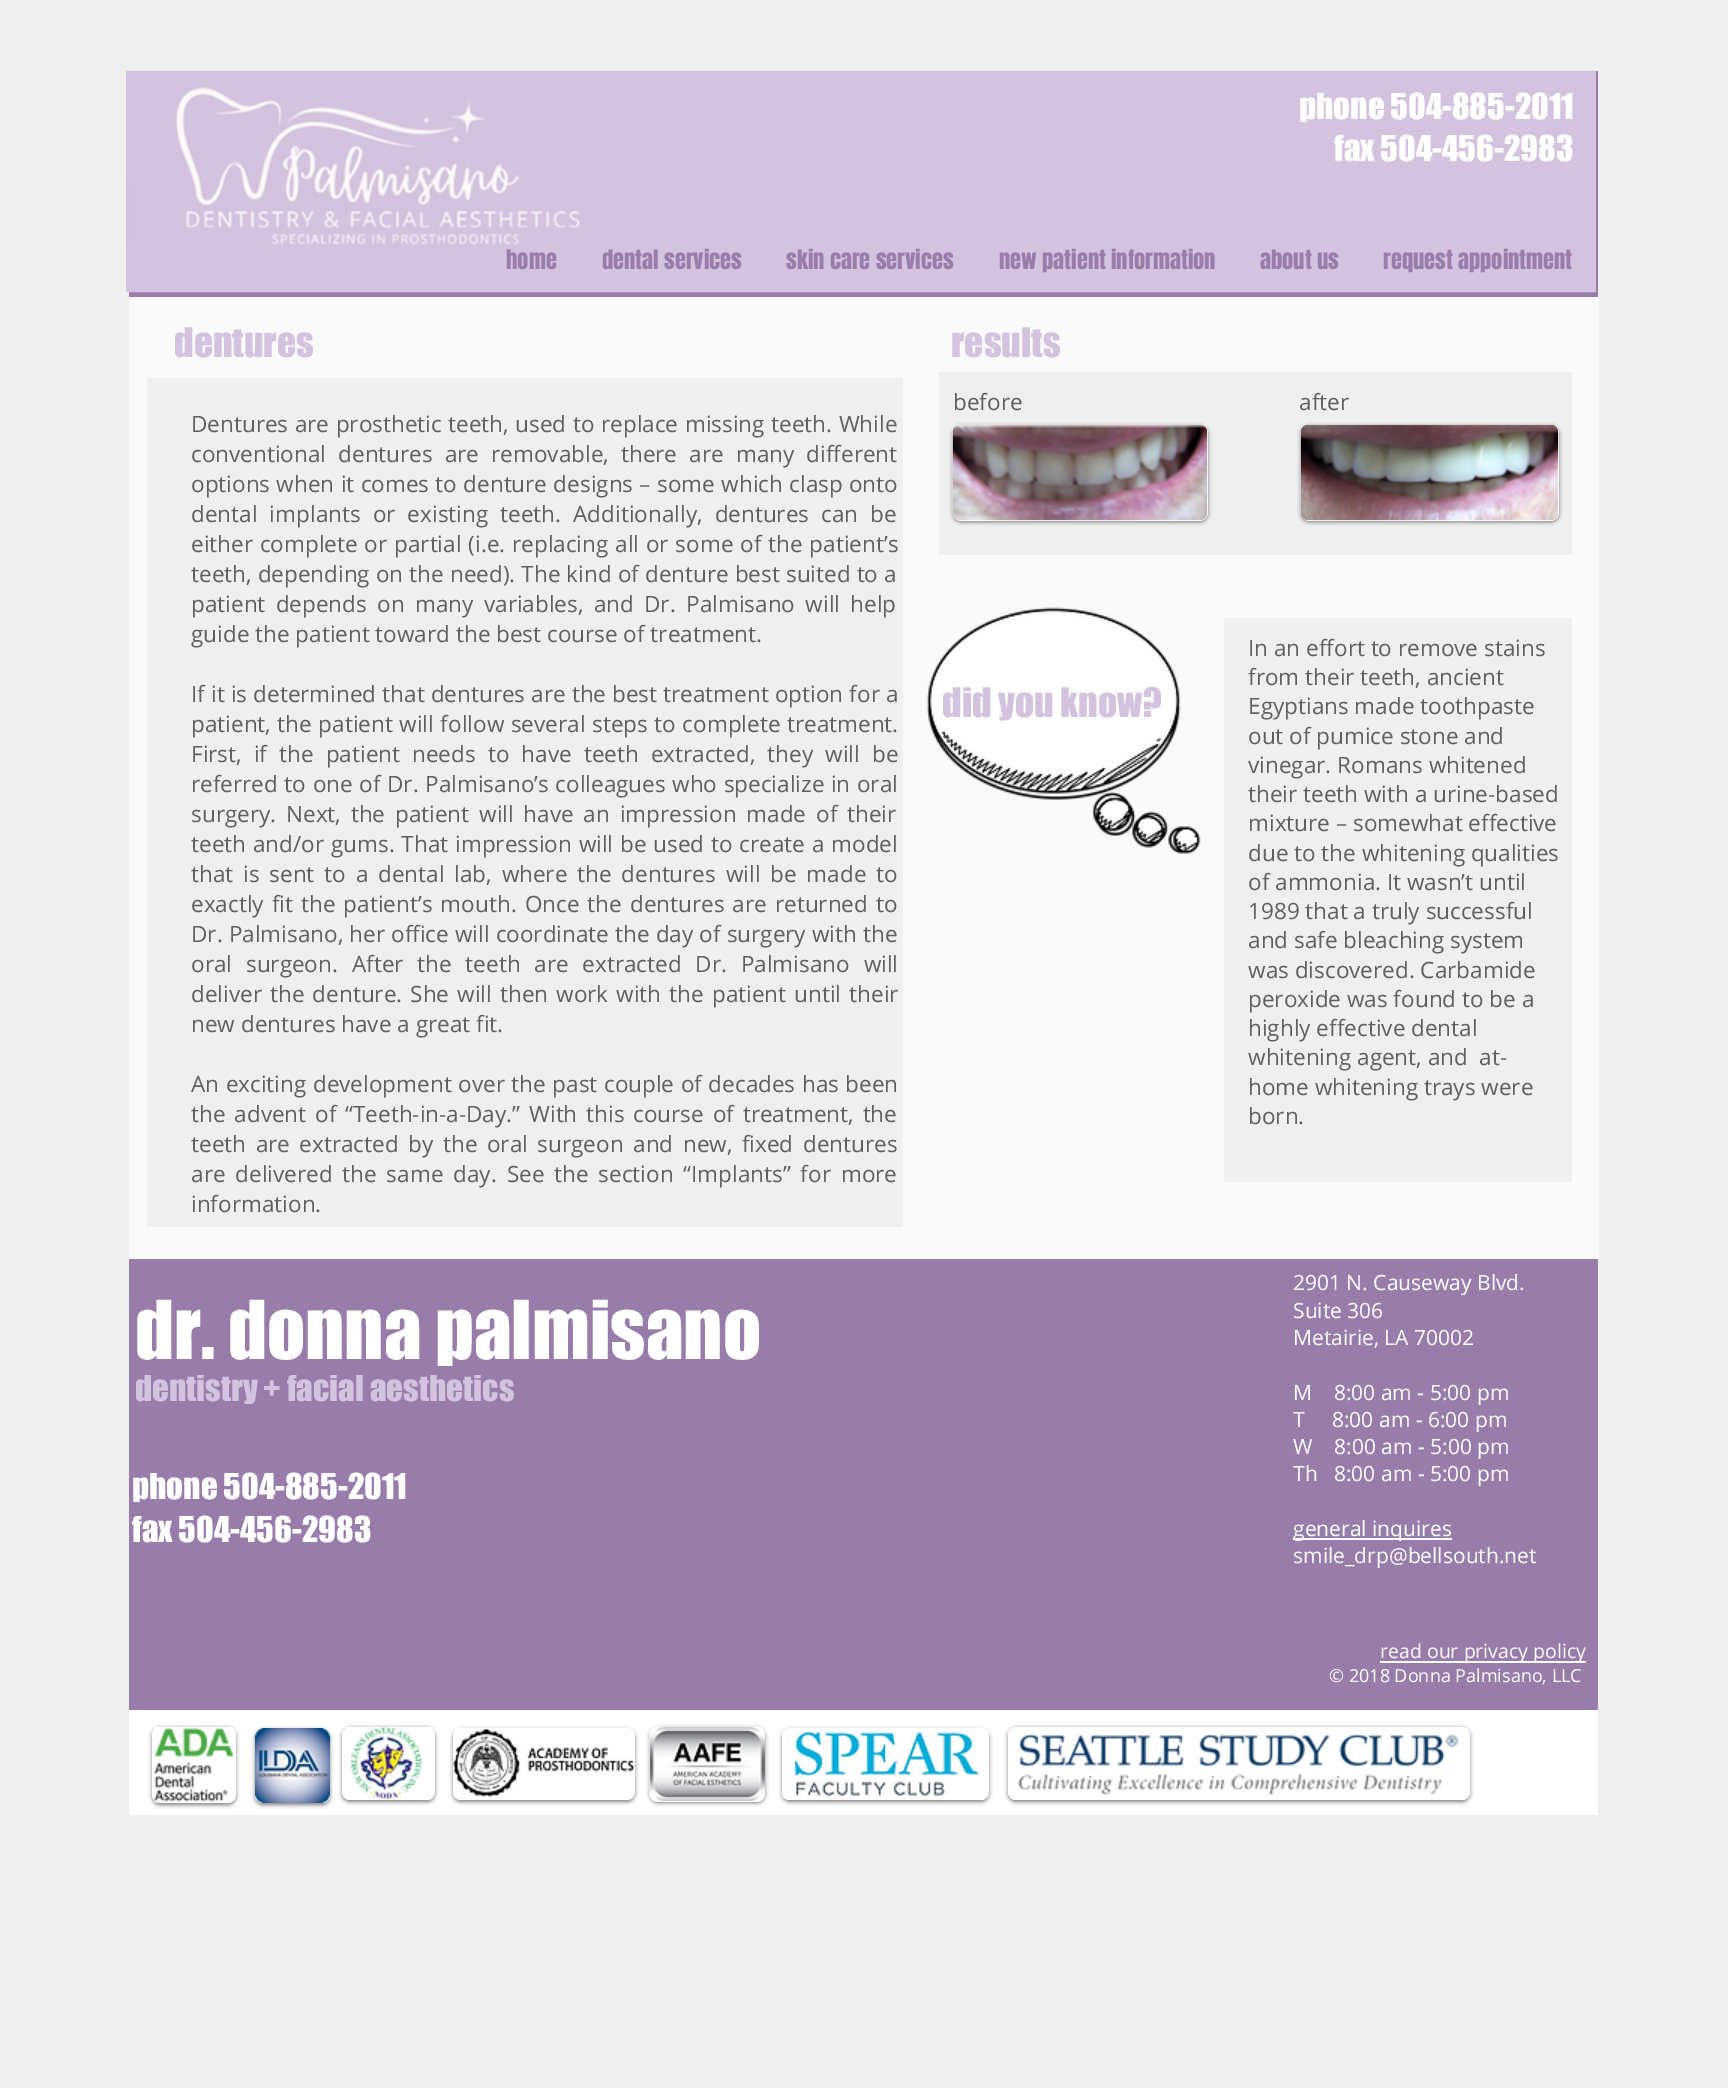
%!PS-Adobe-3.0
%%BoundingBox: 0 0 1728 2088
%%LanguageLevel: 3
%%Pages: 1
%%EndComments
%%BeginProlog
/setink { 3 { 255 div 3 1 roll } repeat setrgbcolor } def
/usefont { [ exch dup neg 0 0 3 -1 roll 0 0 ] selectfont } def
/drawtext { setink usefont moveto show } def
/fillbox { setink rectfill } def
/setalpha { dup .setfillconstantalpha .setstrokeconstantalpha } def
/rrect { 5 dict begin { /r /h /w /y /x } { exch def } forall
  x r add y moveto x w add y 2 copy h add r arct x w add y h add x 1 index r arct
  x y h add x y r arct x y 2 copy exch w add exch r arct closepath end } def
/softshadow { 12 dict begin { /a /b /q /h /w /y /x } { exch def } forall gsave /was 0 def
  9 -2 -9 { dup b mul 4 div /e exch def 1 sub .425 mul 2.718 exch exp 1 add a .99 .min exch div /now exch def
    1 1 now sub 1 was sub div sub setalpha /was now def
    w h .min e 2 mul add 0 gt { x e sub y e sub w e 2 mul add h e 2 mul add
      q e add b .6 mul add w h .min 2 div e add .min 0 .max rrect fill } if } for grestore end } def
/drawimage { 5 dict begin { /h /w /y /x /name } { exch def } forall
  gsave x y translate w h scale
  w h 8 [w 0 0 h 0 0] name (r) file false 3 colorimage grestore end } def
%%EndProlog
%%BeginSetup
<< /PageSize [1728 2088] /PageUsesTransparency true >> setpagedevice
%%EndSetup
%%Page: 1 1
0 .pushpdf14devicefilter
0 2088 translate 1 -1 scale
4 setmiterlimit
0 0 1728 2088 239 239 239 fillbox
129 71 1469 226 152 125 171 fillbox
(assets/img1.rgb) 126 70 1470 223 drawimage
(phone 504-885-2011) 1299 119 /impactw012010-Regular 33 255 255 255 drawtext
(fax 504-456-2983) 1334 161 /impactw012010-Regular 33 255 255 255 drawtext
(home) 506 269 /Anton-Regular 22.5 152 125 171 drawtext
(dental services) 602 269 /Anton-Regular 22.5 152 125 171 drawtext
(skin care services) 786 269 /Anton-Regular 22.5 152 125 171 drawtext
(new patient information) 999 269 /Anton-Regular 22.5 152 125 171 drawtext
(about us) 1260 269 /Anton-Regular 22.5 152 125 171 drawtext
(request appointment) 1383 269 /Anton-Regular 22.5 152 125 171 drawtext
129 297 1470 962 250 250 250 fillbox
(dentures) 174 357 /impactw012010-Regular 37.5 211 195 222 drawtext
(results) 951 357 /impactw012010-Regular 37.5 211 195 222 drawtext
939 372 633 183 239 239 239 fillbox
(before) 953 410 /OpenSans-Regular 22.5 96 96 96 drawtext
(after) 1299 410 /OpenSans-Regular 22.5 96 96 96 drawtext
0 0 0 setink
953 426 255 96 8 2 0.5 softshadow
255 255 255 setink
953 425 255 96 8 rrect fill
(assets/img2.rgb) 952 424 256 97 drawimage
0 0 0 setink
1301 426 258 96 8 2 0.5 softshadow
255 255 255 setink
1301 425 258 96 8 rrect fill
(assets/img3.rgb) 1300 424 259 97 drawimage
147 378 756 849 239 239 239 fillbox
96 96 96 setink
191 432 moveto 0.75 0 32 (Dentures are prosthetic teeth, used to replace missing teeth. While) widthshow
191 462 moveto 6.25 0 32 (conventional dentures are removable, there are many different) widthshow
191 492 moveto 0.5 0 32 (options when it comes to denture designs – some which clasp onto) widthshow
191 522 moveto 6.25 0 32 (dental implants or existing teeth. Additionally, dentures can be) widthshow
191 552 moveto 1 0 32 (either complete or partial \(i.e. replacing all or some of the patient’s) widthshow
191 582 moveto 0.25 0 32 (teeth, depending on the need\). The kind of denture best suited to a) widthshow
191 612 moveto 4.5 0 32 (patient depends on many variables, and Dr. Palmisano will help) widthshow
(guide the patient toward the best course of treatment.) 191 642 /OpenSans-Regular 22.5 96 96 96 drawtext
191 702 moveto 0.25 0 32 (If it is determined that dentures are the best treatment option for a) widthshow
191 732 moveto 0.75 0 32 (patient, the patient will follow several steps to complete treatment.) widthshow
191 762 moveto 6.25 0 32 (First, if the patient needs to have teeth extracted, they will be) widthshow
191 792 moveto 0.75 0 32 (referred to one of Dr. Palmisano’s colleagues who specialize in oral) widthshow
191 822 moveto 4 0 32 (surgery. Next, the patient will have an impression made of their) widthshow
191 852 moveto 1 0 32 (teeth and/or gums. That impression will be used to create a model) widthshow
191 882 moveto 4 0 32 (that is sent to a dental lab, where the dentures will be made to) widthshow
191 912 moveto 2.25 0 32 (exactly fit the patient’s mouth. Once the dentures are returned to) widthshow
191 942 moveto 0.25 0 32 (Dr. Palmisano, her office will coordinate the day of surgery with the) widthshow
191 972 moveto 8 0 32 (oral surgeon. After the teeth are extracted Dr. Palmisano will) widthshow
191 1002 moveto 2.25 0 32 (deliver the denture. She will then work with the patient until their) widthshow
(new dentures have a great fit.) 191 1032 /OpenSans-Regular 22.5 96 96 96 drawtext
191 1092 moveto 0.75 0 32 (An exciting development over the past couple of decades has been) widthshow
191 1122 moveto 3 0 32 (the advent of “Teeth-in-a-Day.” With this course of treatment, the) widthshow
191 1152 moveto 3.75 0 32 (teeth are extracted by the oral surgeon and new, fixed dentures) widthshow
191 1182 moveto 4 0 32 (are delivered the same day. See the section “Implants” for more) widthshow
(information.) 191 1212 /OpenSans-Regular 22.5 96 96 96 drawtext
(assets/img4.rgb) 926 607 275 247 drawimage
1224 618 348 564 239 239 239 fillbox
(In an effort to remove stains) 1248 656 /OpenSans-Regular 22.5 96 96 96 drawtext
(from their teeth, ancient) 1248 685 /OpenSans-Regular 22.5 96 96 96 drawtext
(Egyptians made toothpaste) 1248 714 /OpenSans-Regular 22.5 96 96 96 drawtext
(out of pumice stone and) 1248 744 /OpenSans-Regular 22.5 96 96 96 drawtext
(vinegar. Romans whitened) 1248 773 /OpenSans-Regular 22.5 96 96 96 drawtext
(their teeth with a urine-based) 1248 802 /OpenSans-Regular 22.5 96 96 96 drawtext
(mixture – somewhat effective) 1248 831 /OpenSans-Regular 22.5 96 96 96 drawtext
(due to the whitening qualities) 1248 861 /OpenSans-Regular 22.5 96 96 96 drawtext
(of ammonia. It wasn’t until) 1248 890 /OpenSans-Regular 22.5 96 96 96 drawtext
(1989 that a truly successful) 1248 919 /OpenSans-Regular 22.5 96 96 96 drawtext
(and safe bleaching system) 1248 948 /OpenSans-Regular 22.5 96 96 96 drawtext
(was discovered. Carbamide) 1248 978 /OpenSans-Regular 22.5 96 96 96 drawtext
(peroxide was found to be a) 1248 1007 /OpenSans-Regular 22.5 96 96 96 drawtext
(highly effective dental) 1248 1036 /OpenSans-Regular 22.5 96 96 96 drawtext
(whitening agent, and  at-) 1248 1065 /OpenSans-Regular 22.5 96 96 96 drawtext
(home whitening trays were) 1248 1095 /OpenSans-Regular 22.5 96 96 96 drawtext
(born.) 1248 1124 /OpenSans-Regular 22.5 96 96 96 drawtext
(did you know?) 942 717 /impactw012010-Regular 37.5 211 195 222 drawtext
129 1259 1469 451 152 125 171 fillbox
(dr. donna palmisano) 135 1359 /impactw012010-Regular 75 255 255 255 drawtext
(dentistry + facial aesthetics) 135 1401 /impactw012010-Regular 33 211 195 222 drawtext
(2901 N. Causeway Blvd.) 1293 1290 /OpenSans-Regular 21 255 255 255 drawtext
(Suite 306) 1293 1318 /OpenSans-Regular 21 255 255 255 drawtext
(Metairie, LA 70002) 1293 1345 /OpenSans-Regular 21 255 255 255 drawtext
(M    8:00 am - 5:00 pm) 1293 1400 /OpenSans-Regular 21 255 255 255 drawtext
(T     8:00 am - 6:00 pm) 1293 1427 /OpenSans-Regular 21 255 255 255 drawtext
(W    8:00 am - 5:00 pm) 1293 1454 /OpenSans-Regular 21 255 255 255 drawtext
(Th   8:00 am - 5:00 pm) 1293 1481 /OpenSans-Regular 21 255 255 255 drawtext
1293 1538 159 2 255 255 255 fillbox
(general inquires) 1293 1536 /OpenSans-Regular 21 255 255 255 drawtext
(smile_drp@bellsouth.net) 1293 1563 /OpenSans-Regular 21 255 255 255 drawtext
(phone 504-885-2011) 132 1499 /impactw012010-Regular 33 255 255 255 drawtext
(fax 504-456-2983) 132 1542 /impactw012010-Regular 33 255 255 255 drawtext
1380 1661 206 2 255 255 255 fillbox
(read our privacy policy) 1380 1658 /OpenSans-Regular 19.5 255 255 255 drawtext
(© 2018 Donna Palmisano, LLC) 1329 1682 /OpenSans-Regular 18 255 255 255 drawtext
129 1710 1469 105 255 255 255 fillbox
0 0 0 setink
152 1728 84 77 8 2 0.5 softshadow
255 255 255 setink
152 1727 84 76 8 rrect fill
(assets/img5.rgb) 154 1727 81 75 drawimage
0 0 0 setink
255 1730 75 75 8 2 0.5 softshadow
255 255 255 setink
255 1728 75 75 8 rrect fill
(assets/img6.rgb) 255 1728 75 75 drawimage
0 0 0 setink
342 1728 93 74 8 2 0.5 softshadow
255 255 255 setink
342 1727 93 73 8 rrect fill
(assets/img7.rgb) 346 1727 86 73 drawimage
0 0 0 setink
453 1730 182 72 8 2 0.5 softshadow
255 255 255 setink
453 1728 182 72 8 rrect fill
(assets/img8.rgb) 453 1728 182 72 drawimage
0 0 0 setink
650 1728 115 75 8 2 0.5 softshadow
255 255 255 setink
650 1727 115 75 8 rrect fill
(assets/img9.rgb) 649 1726 116 76 drawimage
0 0 0 setink
782 1730 207 72 8 2 0.5 softshadow
255 255 255 setink
782 1728 207 72 8 rrect fill
(assets/img10.rgb) 782 1731 202 69 drawimage
0 0 0 setink
1008 1728 462 74 8 2 0.5 softshadow
255 255 255 setink
1008 1727 462 73 8 rrect fill
(assets/img11.rgb) 1018 1734 441 62 drawimage
.poppdf14devicefilter showpage
%%EOF
